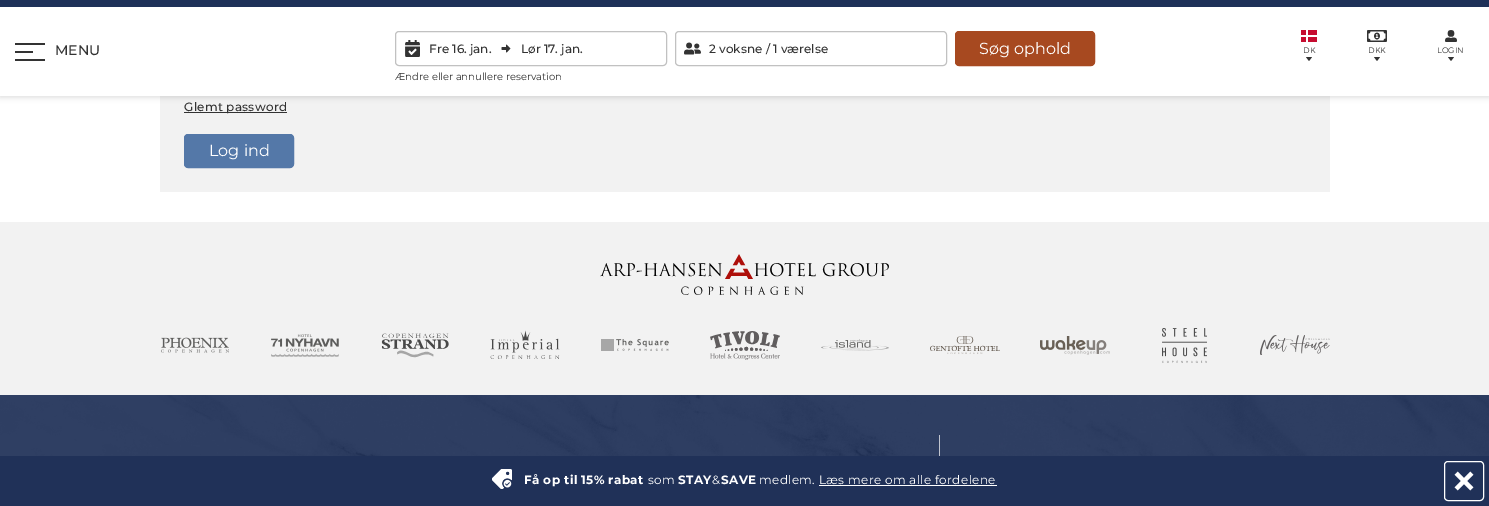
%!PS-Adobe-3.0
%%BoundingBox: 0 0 1489 506
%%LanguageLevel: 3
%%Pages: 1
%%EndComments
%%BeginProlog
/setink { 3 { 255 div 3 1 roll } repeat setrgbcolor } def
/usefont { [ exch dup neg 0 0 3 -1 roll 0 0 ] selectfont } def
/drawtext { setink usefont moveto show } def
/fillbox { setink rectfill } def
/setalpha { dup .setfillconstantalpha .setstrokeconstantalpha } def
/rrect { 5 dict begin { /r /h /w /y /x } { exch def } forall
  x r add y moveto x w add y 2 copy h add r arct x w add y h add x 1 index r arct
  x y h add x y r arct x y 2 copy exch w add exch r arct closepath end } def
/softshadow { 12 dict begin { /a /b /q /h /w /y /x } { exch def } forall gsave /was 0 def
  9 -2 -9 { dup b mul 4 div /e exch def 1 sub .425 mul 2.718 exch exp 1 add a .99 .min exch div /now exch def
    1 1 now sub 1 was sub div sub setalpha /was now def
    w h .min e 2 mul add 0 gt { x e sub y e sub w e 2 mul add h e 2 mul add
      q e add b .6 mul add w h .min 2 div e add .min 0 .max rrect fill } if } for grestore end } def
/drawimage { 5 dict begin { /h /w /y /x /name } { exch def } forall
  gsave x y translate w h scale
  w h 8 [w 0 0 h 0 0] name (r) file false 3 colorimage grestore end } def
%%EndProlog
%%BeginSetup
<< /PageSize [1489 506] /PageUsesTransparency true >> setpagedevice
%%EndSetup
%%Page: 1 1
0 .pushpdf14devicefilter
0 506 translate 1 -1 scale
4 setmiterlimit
0 0 1489 506 255 255 255 fillbox
160 96 1170 96 242 242 242 fillbox
0 0 0 setink
0 -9 1489 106 0 3 0.15 softshadow
0 0 1489 7 30 49 88 fillbox
0 7 1489 89 255 255 255 fillbox
15 43 30 2 51 51 51 fillbox
15 51 18 2 51 51 51 fillbox
15 59 30 2 51 51 51 fillbox
(MENU) 55 55 /Montserrat-Medium 14 51 51 51 drawtext
193 193 193 setink
395.5 31.5 271 34 3.5 rrect stroke
(assets/img1.rgb) 405 40 15 17 drawimage
(Fre 16. jan.) 429 53 /Montserrat-Medium 12 51 51 51 drawtext
(assets/img2.rgb) 501 44 10 9 drawimage
(Lør 17. jan.) 521 53 /Montserrat-Medium 12 51 51 51 drawtext
193 193 193 setink
675.5 31.5 271 34 3.5 rrect stroke
(assets/img3.rgb) 684 42 17 13 drawimage
(2 voksne / 1 værelse) 709 53 /Montserrat-Medium 12 51 51 51 drawtext
167 73 32 setink
955.5 31.5 139 34 3.5 rrect gsave fill grestore
stroke
(Søg ophold) 979 54 /Montserrat-Regular 16 255 255 255 drawtext
(Ændre eller annullere reservation) 395 80 /Montserrat-Regular 10 51 51 51 drawtext
1301 30 16 12 198 12 48 fillbox
1306 30 2 12 255 255 255 fillbox
1301 35 16 2 255 255 255 fillbox
(DK) 1303 53 /Montserrat-Regular 8 51 51 51 drawtext
1306 57 moveto 1312 57 lineto 1309 61 lineto closepath fill
(assets/img4.rgb) 1367 30 20 12 drawimage
(DKK) 1368 53 /Montserrat-Regular 8 51 51 51 drawtext
1374 57 moveto 1380 57 lineto 1377 61 lineto closepath fill
(assets/img5.rgb) 1445 30 12 12 drawimage
(LOGIN) 1437 53 /Montserrat-Regular 8 51 51 51 drawtext
1448 57 moveto 1454 57 lineto 1451 61 lineto closepath fill
184 112 103 1 51 51 51 fillbox
/Montserrat-Medium 12 usefont
184 111 moveto 0.25 0 (Glemt password) ashow
84 120 168 setink
184.5 134.5 109 33 3.5 rrect gsave fill grestore
stroke
(Log ind) 209 156 /Montserrat-Regular 16 255 255 255 drawtext
0 222 1489 173 242 242 242 fillbox
(assets/img6.rgb) 600 254 289 41 drawimage
(assets/img7.rgb) 161 337 68 16 drawimage
(assets/img8.rgb) 271 334 68 23 drawimage
(assets/img9.rgb) 381 333 68 25 drawimage
(assets/img10.rgb) 490 330 70 29 drawimage
(assets/img11.rgb) 601 339 68 12 drawimage
(assets/img12.rgb) 710 331 70 29 drawimage
(assets/img13.rgb) 821 339 68 12 drawimage
(assets/img14.rgb) 930 336 70 18 drawimage
(assets/img15.rgb) 1040 336 70 19 drawimage
(assets/img16.rgb) 1162 328 45 35 drawimage
(assets/img17.rgb) 1260 335 70 20 drawimage
(assets/img18.rgb) 0 395 1489 61 drawimage
0.7 setalpha
939 435 1 21 255 255 255 fillbox
1 setalpha
0 456 1489 50 32 49 88 fillbox
(assets/img19.rgb) 492 469 20 20 drawimage
/Montserrat-Bold 12 usefont
255 255 255 setink
524 484 moveto 0.35 0 (Få op til 15% rabat) ashow
/Montserrat-Regular 12 usefont
648 484 moveto 0.35 0 (som) ashow
/Montserrat-Bold 12 usefont
678 484 moveto 0.35 0 (STAY) ashow
/Montserrat-Regular 12 usefont
712 484 moveto 0.35 0 (&) ashow
/Montserrat-Bold 12 usefont
721 484 moveto 0.35 0 (SAVE) ashow
/Montserrat-Regular 12 usefont
759 484 moveto 0.35 0 (medlem. Læs mere om alle fordelene) ashow
819 485 178 1 255 255 255 fillbox
1444.5 461.5 39 39 3.5 rrect stroke
(assets/img20.rgb) 1454 471 20 20 drawimage
.poppdf14devicefilter showpage
%%EOF
